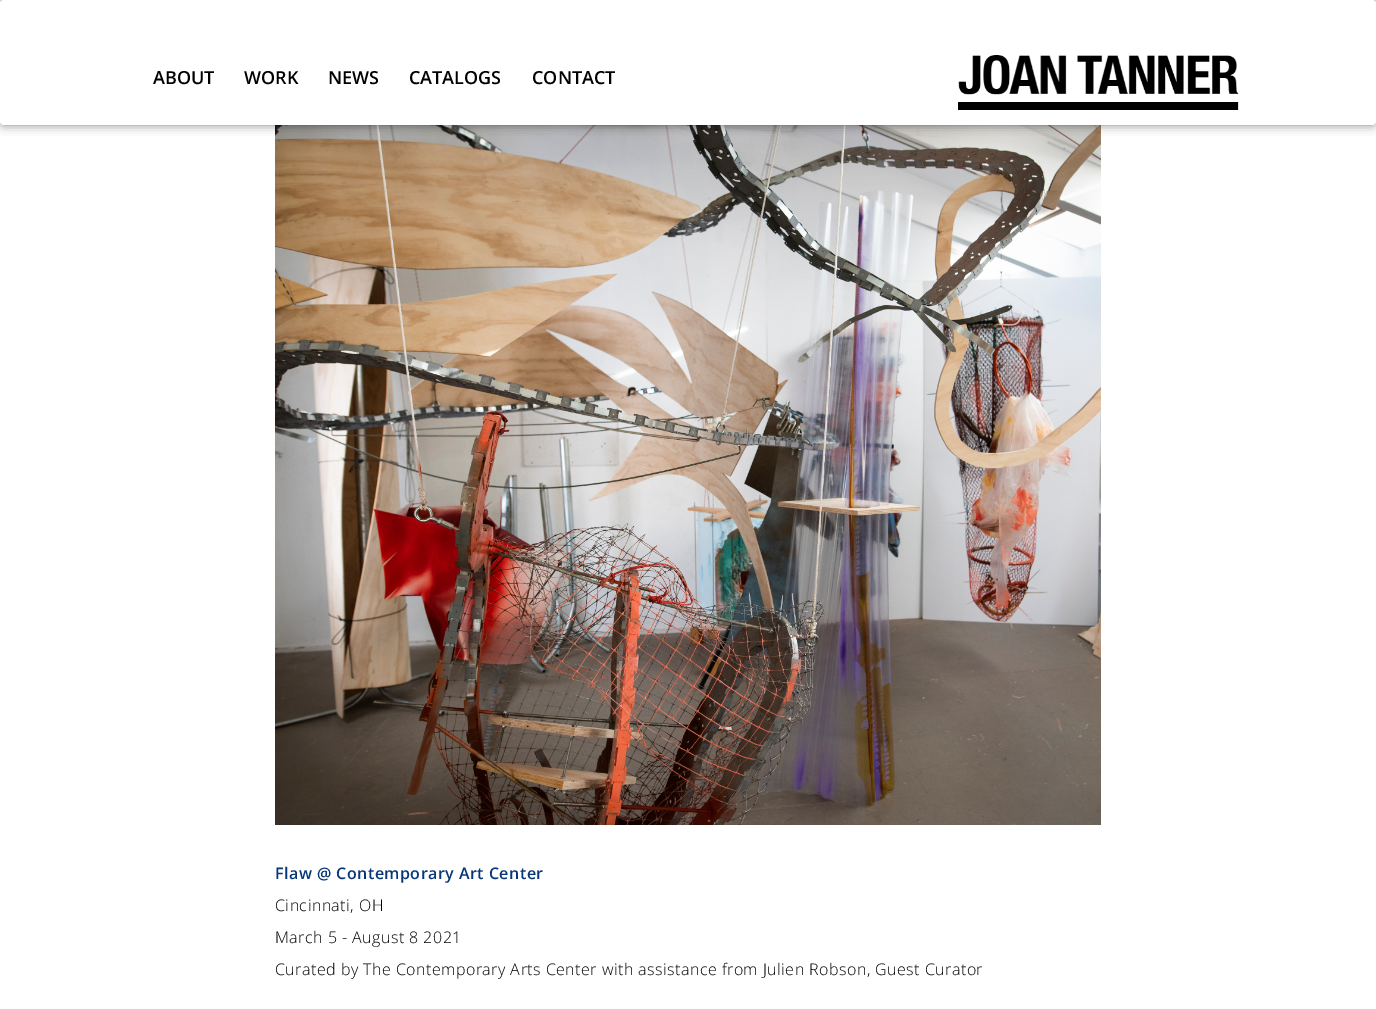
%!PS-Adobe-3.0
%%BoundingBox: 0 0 1376 1009
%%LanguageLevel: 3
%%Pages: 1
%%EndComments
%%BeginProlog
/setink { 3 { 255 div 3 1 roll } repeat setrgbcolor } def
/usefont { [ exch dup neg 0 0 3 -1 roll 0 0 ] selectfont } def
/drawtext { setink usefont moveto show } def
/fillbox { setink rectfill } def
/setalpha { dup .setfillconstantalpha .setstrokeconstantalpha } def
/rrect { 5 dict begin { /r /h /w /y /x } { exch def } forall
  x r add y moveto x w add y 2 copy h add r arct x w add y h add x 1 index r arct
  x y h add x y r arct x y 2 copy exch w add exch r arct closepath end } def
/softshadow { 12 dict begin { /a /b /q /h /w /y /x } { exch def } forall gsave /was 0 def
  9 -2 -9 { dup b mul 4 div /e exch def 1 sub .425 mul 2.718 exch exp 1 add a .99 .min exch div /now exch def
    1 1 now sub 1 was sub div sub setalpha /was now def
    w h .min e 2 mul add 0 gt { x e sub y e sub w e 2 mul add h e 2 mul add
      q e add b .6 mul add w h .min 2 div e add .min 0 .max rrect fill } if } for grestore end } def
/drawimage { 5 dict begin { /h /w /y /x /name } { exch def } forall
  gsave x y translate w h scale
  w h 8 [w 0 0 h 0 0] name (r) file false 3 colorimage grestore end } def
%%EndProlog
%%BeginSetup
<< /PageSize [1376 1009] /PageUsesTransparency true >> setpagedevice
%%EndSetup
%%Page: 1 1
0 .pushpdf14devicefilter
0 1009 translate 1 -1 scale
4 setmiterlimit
0 0 1376 1009 255 255 255 fillbox
(assets/img2.rgb) 275 125 826 700 drawimage
0 0 0 setink
0 0 1376 125 4 5 0.5 softshadow
255 255 255 setink
0 0 1376 125 4 rrect fill
(ABOUT) 153 84 /OpenSans-SemiBold 18 0 0 0 drawtext
(WORK) 244 84 /OpenSans-SemiBold 18 0 0 0 drawtext
(NEWS) 328 84 /OpenSans-SemiBold 18 0 0 0 drawtext
(CATALOGS) 409 84 /OpenSans-SemiBold 18 0 0 0 drawtext
(CONTACT) 532 84 /OpenSans-SemiBold 18 0 0 0 drawtext
(assets/img1.rgb) 958 55 281 55 drawimage
/OpenSans-SemiBold 16 usefont
7 55 120 setink
275 879 moveto 0.48 0 (Flaw @ Contemporary Art Center) ashow
/OpenSans-Light 16 usefont
0 0 0 setink
275 911 moveto 0.48 0 (Cincinnati, OH) ashow
275 943 moveto 0.48 0 (March 5 - August 8 2021) ashow
275 975 moveto 0.48 0 (Curated by The Contemporary Arts Center with assistance from Julien Robson, Guest Curator) ashow
.poppdf14devicefilter showpage
%%EOF
